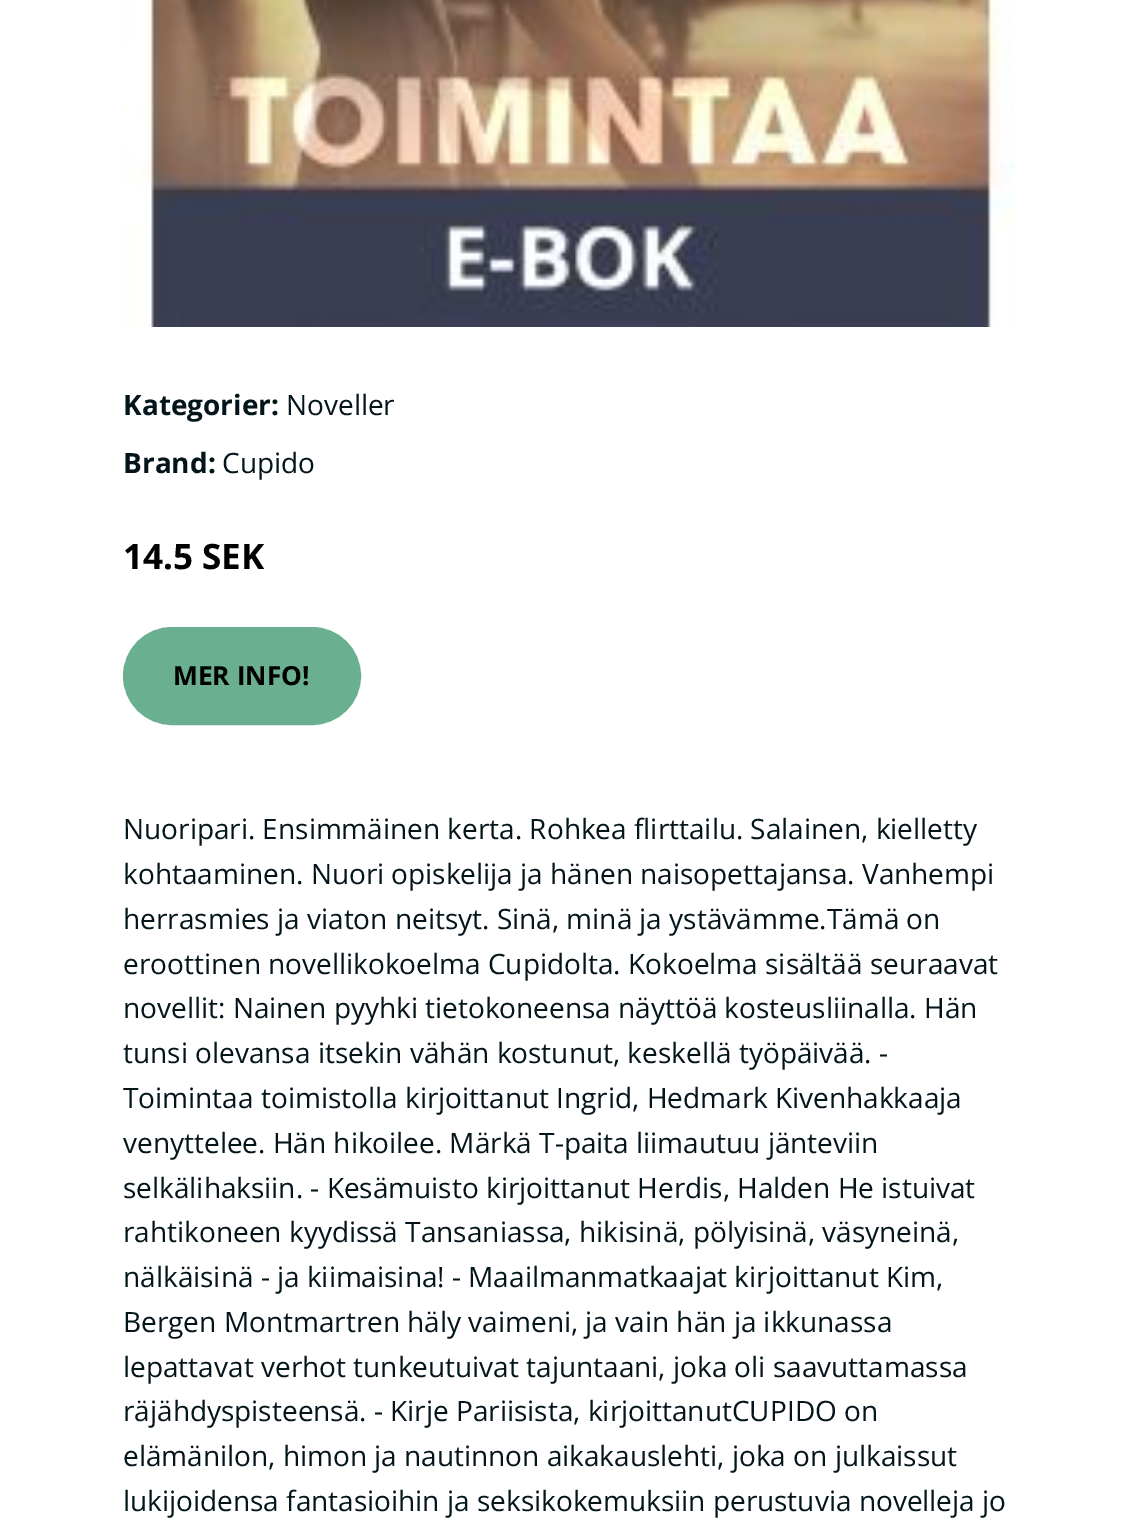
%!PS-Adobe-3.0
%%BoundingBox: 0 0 1137 1529
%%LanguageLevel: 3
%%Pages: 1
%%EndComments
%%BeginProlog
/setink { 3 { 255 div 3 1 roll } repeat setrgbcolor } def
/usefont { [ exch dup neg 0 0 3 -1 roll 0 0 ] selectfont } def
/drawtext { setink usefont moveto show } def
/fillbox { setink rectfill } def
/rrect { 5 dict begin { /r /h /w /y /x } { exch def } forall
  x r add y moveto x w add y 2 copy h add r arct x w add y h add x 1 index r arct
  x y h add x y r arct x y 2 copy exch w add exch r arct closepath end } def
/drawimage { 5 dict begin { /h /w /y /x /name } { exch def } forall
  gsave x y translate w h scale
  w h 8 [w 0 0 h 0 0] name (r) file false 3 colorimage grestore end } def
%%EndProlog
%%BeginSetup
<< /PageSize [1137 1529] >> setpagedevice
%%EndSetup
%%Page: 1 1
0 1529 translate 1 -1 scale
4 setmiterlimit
0 0 1137 1529 255 255 255 fillbox
(assets/img1.rgb) 123 0 892 327 drawimage
(Kategorier:) 123 415 /OpenSans-Bold 28 3 21 27 drawtext
(Noveller) 286 415 /OpenSans-Regular 28 3 21 27 drawtext
(Brand:) 123 473 /OpenSans-Bold 28 3 21 27 drawtext
(Cupido) 222 473 /OpenSans-Regular 28 3 21 27 drawtext
(14.5 SEK) 123 569 /OpenSans-Bold 35 0 0 0 drawtext
106 175 143 setink
124 628 236 96 48 rrect gsave fill grestore
2 setlinewidth
stroke
(MER INFO!) 173 685 /OpenSans-Bold 26.25 0 0 0 drawtext
(Nuoripari. Ensimmäinen kerta. Rohkea flirttailu. Salainen, kielletty) 123 839 /OpenSans-Regular 28 3 21 27 drawtext
(kohtaaminen. Nuori opiskelija ja hänen naisopettajansa. Vanhempi) 123 884 /OpenSans-Regular 28 3 21 27 drawtext
(herrasmies ja viaton neitsyt. Sinä, minä ja ystävämme.Tämä on) 123 929 /OpenSans-Regular 28 3 21 27 drawtext
(eroottinen novellikokoelma Cupidolta. Kokoelma sisältää seuraavat) 123 974 /OpenSans-Regular 28 3 21 27 drawtext
(novellit: Nainen pyyhki tietokoneensa näyttöä kosteusliinalla. Hän) 123 1018 /OpenSans-Regular 28 3 21 27 drawtext
(tunsi olevansa itsekin vähän kostunut, keskellä työpäivää. -) 123 1063 /OpenSans-Regular 28 3 21 27 drawtext
(Toimintaa toimistolla kirjoittanut Ingrid, Hedmark Kivenhakkaaja) 123 1108 /OpenSans-Regular 28 3 21 27 drawtext
(venyttelee. Hän hikoilee. Märkä T-paita liimautuu jänteviin) 123 1153 /OpenSans-Regular 28 3 21 27 drawtext
(selkälihaksiin. - Kesämuisto kirjoittanut Herdis, Halden He istuivat) 123 1198 /OpenSans-Regular 28 3 21 27 drawtext
(rahtikoneen kyydissä Tansaniassa, hikisinä, pölyisinä, väsyneinä,) 123 1242 /OpenSans-Regular 28 3 21 27 drawtext
(nälkäisinä - ja kiimaisina! - Maailmanmatkaajat kirjoittanut Kim,) 123 1287 /OpenSans-Regular 28 3 21 27 drawtext
(Bergen Montmartren häly vaimeni, ja vain hän ja ikkunassa) 123 1332 /OpenSans-Regular 28 3 21 27 drawtext
(lepattavat verhot tunkeutuivat tajuntaani, joka oli saavuttamassa) 123 1377 /OpenSans-Regular 28 3 21 27 drawtext
(räjähdyspisteensä. - Kirje Pariisista, kirjoittanutCUPIDO on) 123 1421 /OpenSans-Regular 28 3 21 27 drawtext
(elämänilon, himon ja nautinnon aikakauslehti, joka on julkaissut) 123 1466 /OpenSans-Regular 28 3 21 27 drawtext
(lukijoidensa fantasioihin ja seksikokemuksiin perustuvia novelleja jo) 123 1511 /OpenSans-Regular 28 3 21 27 drawtext
showpage
%%EOF
